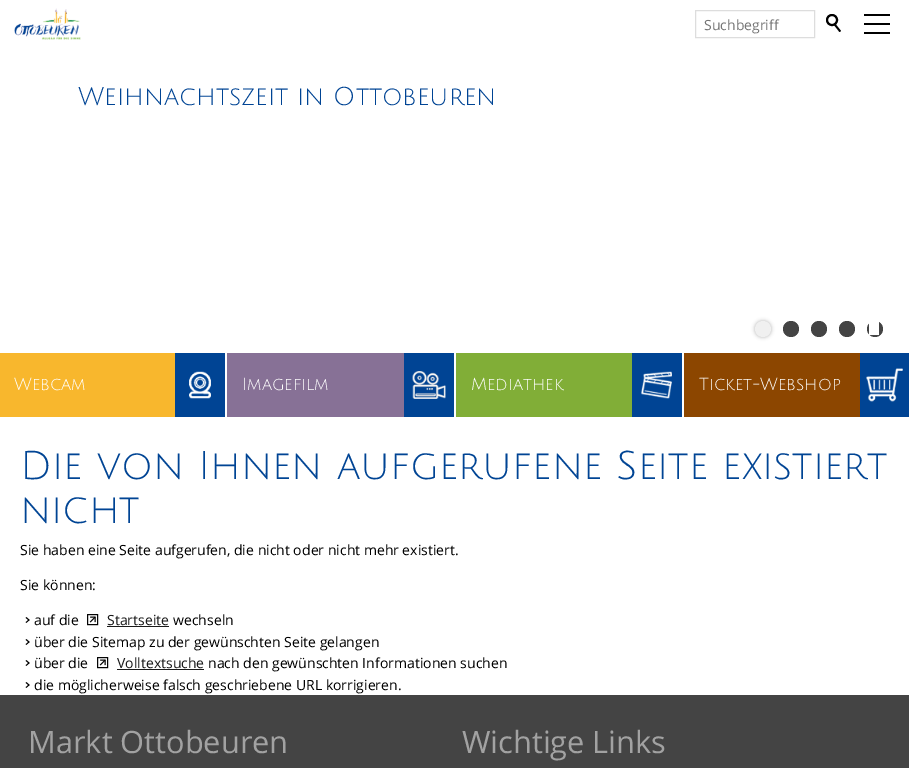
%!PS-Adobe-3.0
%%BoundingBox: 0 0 909 768
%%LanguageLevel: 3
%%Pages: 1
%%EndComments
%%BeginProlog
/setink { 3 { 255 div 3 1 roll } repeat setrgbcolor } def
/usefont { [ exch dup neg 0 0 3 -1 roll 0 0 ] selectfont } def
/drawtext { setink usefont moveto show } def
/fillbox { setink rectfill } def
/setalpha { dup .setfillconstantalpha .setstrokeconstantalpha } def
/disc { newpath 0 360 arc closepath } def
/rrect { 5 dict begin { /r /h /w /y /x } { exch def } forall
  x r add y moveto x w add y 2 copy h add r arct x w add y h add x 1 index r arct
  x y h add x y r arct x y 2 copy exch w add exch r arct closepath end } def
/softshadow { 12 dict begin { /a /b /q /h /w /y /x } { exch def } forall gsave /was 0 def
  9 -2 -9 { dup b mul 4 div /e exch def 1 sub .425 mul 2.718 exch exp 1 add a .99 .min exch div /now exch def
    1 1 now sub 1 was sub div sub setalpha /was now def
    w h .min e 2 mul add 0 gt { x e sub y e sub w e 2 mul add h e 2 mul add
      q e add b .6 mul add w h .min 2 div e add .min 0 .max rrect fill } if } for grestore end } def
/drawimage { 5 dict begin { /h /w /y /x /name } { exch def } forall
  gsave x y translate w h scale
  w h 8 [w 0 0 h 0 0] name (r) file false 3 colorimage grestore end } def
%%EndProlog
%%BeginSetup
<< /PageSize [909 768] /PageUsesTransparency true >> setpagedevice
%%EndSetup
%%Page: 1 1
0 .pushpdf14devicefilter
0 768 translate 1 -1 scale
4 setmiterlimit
0 0 909 768 255 255 255 fillbox
(assets/img1.rgb) 14 8 67 32 drawimage
221 221 221 setink
695.5 10.5 119 27 rectstroke
(Suchbegriff) 704 30 /OpenSans-Regular 14 117 117 117 drawtext
0 0 0 setink
2 setlinewidth
832 20 5 disc stroke
835.5 24 moveto 841 31 lineto 839.5 32 lineto 834 25 lineto closepath fill
864 14 26 2 0 0 0 fillbox
864 23 26 2 0 0 0 fillbox
864 32 26 2 0 0 0 fillbox
(Weihnachtszeit in Ottobeuren) 78 105 /JuliusSansOne-Regular 25.25 0 68 148 drawtext
68 68 68 setink
875 329 8 disc fill
869 321 10 14 255 255 255 fillbox
0 0 0 setink
755 321 16 16 8 2 0.3 softshadow
240 240 240 setink
763 329 8 disc fill
68 68 68 setink
791 329 8 disc fill
819 329 8 disc fill
847 329 8 disc fill
0 353 175 64 248 183 45 fillbox
(Webcam) 14 390 /JuliusSansOne-Regular 17 255 255 255 drawtext
175 353 50 64 0 68 148 fillbox
(assets/img2.rgb) 189 371 22 28 drawimage
227 353 177 64 135 113 150 fillbox
(Imagefilm) 242 390 /JuliusSansOne-Regular 17 255 255 255 drawtext
404 353 50 64 0 68 148 fillbox
(assets/img3.rgb) 412 371 34 28 drawimage
456 353 176 64 129 174 55 fillbox
(Mediathek) 471 390 /JuliusSansOne-Regular 17 255 255 255 drawtext
632 353 50 64 0 68 148 fillbox
(assets/img4.rgb) 641 371 31 28 drawimage
684 353 176 64 140 70 0 fillbox
(Ticket-Webshop) 699 390 /JuliusSansOne-Regular 17 255 255 255 drawtext
860 353 49 64 0 68 148 fillbox
(assets/img5.rgb) 866 368 37 34 drawimage
(Die von Ihnen aufgerufene Seite existiert) 20 479 /JuliusSansOne-Regular 39.2 0 68 148 drawtext
(nicht) 20 523 /JuliusSansOne-Regular 39.2 0 68 148 drawtext
(Sie haben eine Seite aufgerufen, die nicht oder nicht mehr existiert.) 20 555 /OpenSans-Regular 14 0 0 0 drawtext
(Sie können:) 20 590 /OpenSans-Regular 14 0 0 0 drawtext
0.9 setlinewidth
26 617.5 moveto 29 620 lineto 26 622.5 lineto stroke
(auf die) 34 625 /OpenSans-Regular 14 0 0 0 drawtext
(assets/img6.rgb) 87 614 12 12 drawimage
(Startseite) 107 625 /OpenSans-Regular 14 26 26 26 drawtext
107 626 62 1 26 26 26 fillbox
(wechseln) 173 625 /OpenSans-Regular 14 0 0 0 drawtext
26 639.5 moveto 29 642 lineto 26 644.5 lineto stroke
(über die Sitemap zu der gewünschten Seite gelangen) 34 647 /OpenSans-Regular 14 0 0 0 drawtext
26 660.5 moveto 29 663 lineto 26 665.5 lineto stroke
(über die) 34 668 /OpenSans-Regular 14 0 0 0 drawtext
(assets/img6.rgb) 97 657 12 12 drawimage
(Volltextsuche) 117 668 /OpenSans-Regular 14 26 26 26 drawtext
117 669 87 1 26 26 26 fillbox
(nach den gewünschten Informationen suchen) 208 668 /OpenSans-Regular 14 0 0 0 drawtext
26 682.5 moveto 29 685 lineto 26 687.5 lineto stroke
(die möglicherweise falsch geschriebene URL korrigieren.) 34 690 /OpenSans-Regular 14 0 0 0 drawtext
0 695 909 73 68 68 68 fillbox
(Markt Ottobeuren) 28 753 /OpenSans-Regular 30.75 162 162 162 drawtext
(Wichtige Links) 462 753 /OpenSans-Regular 30.75 162 162 162 drawtext
.poppdf14devicefilter showpage
%%EOF
